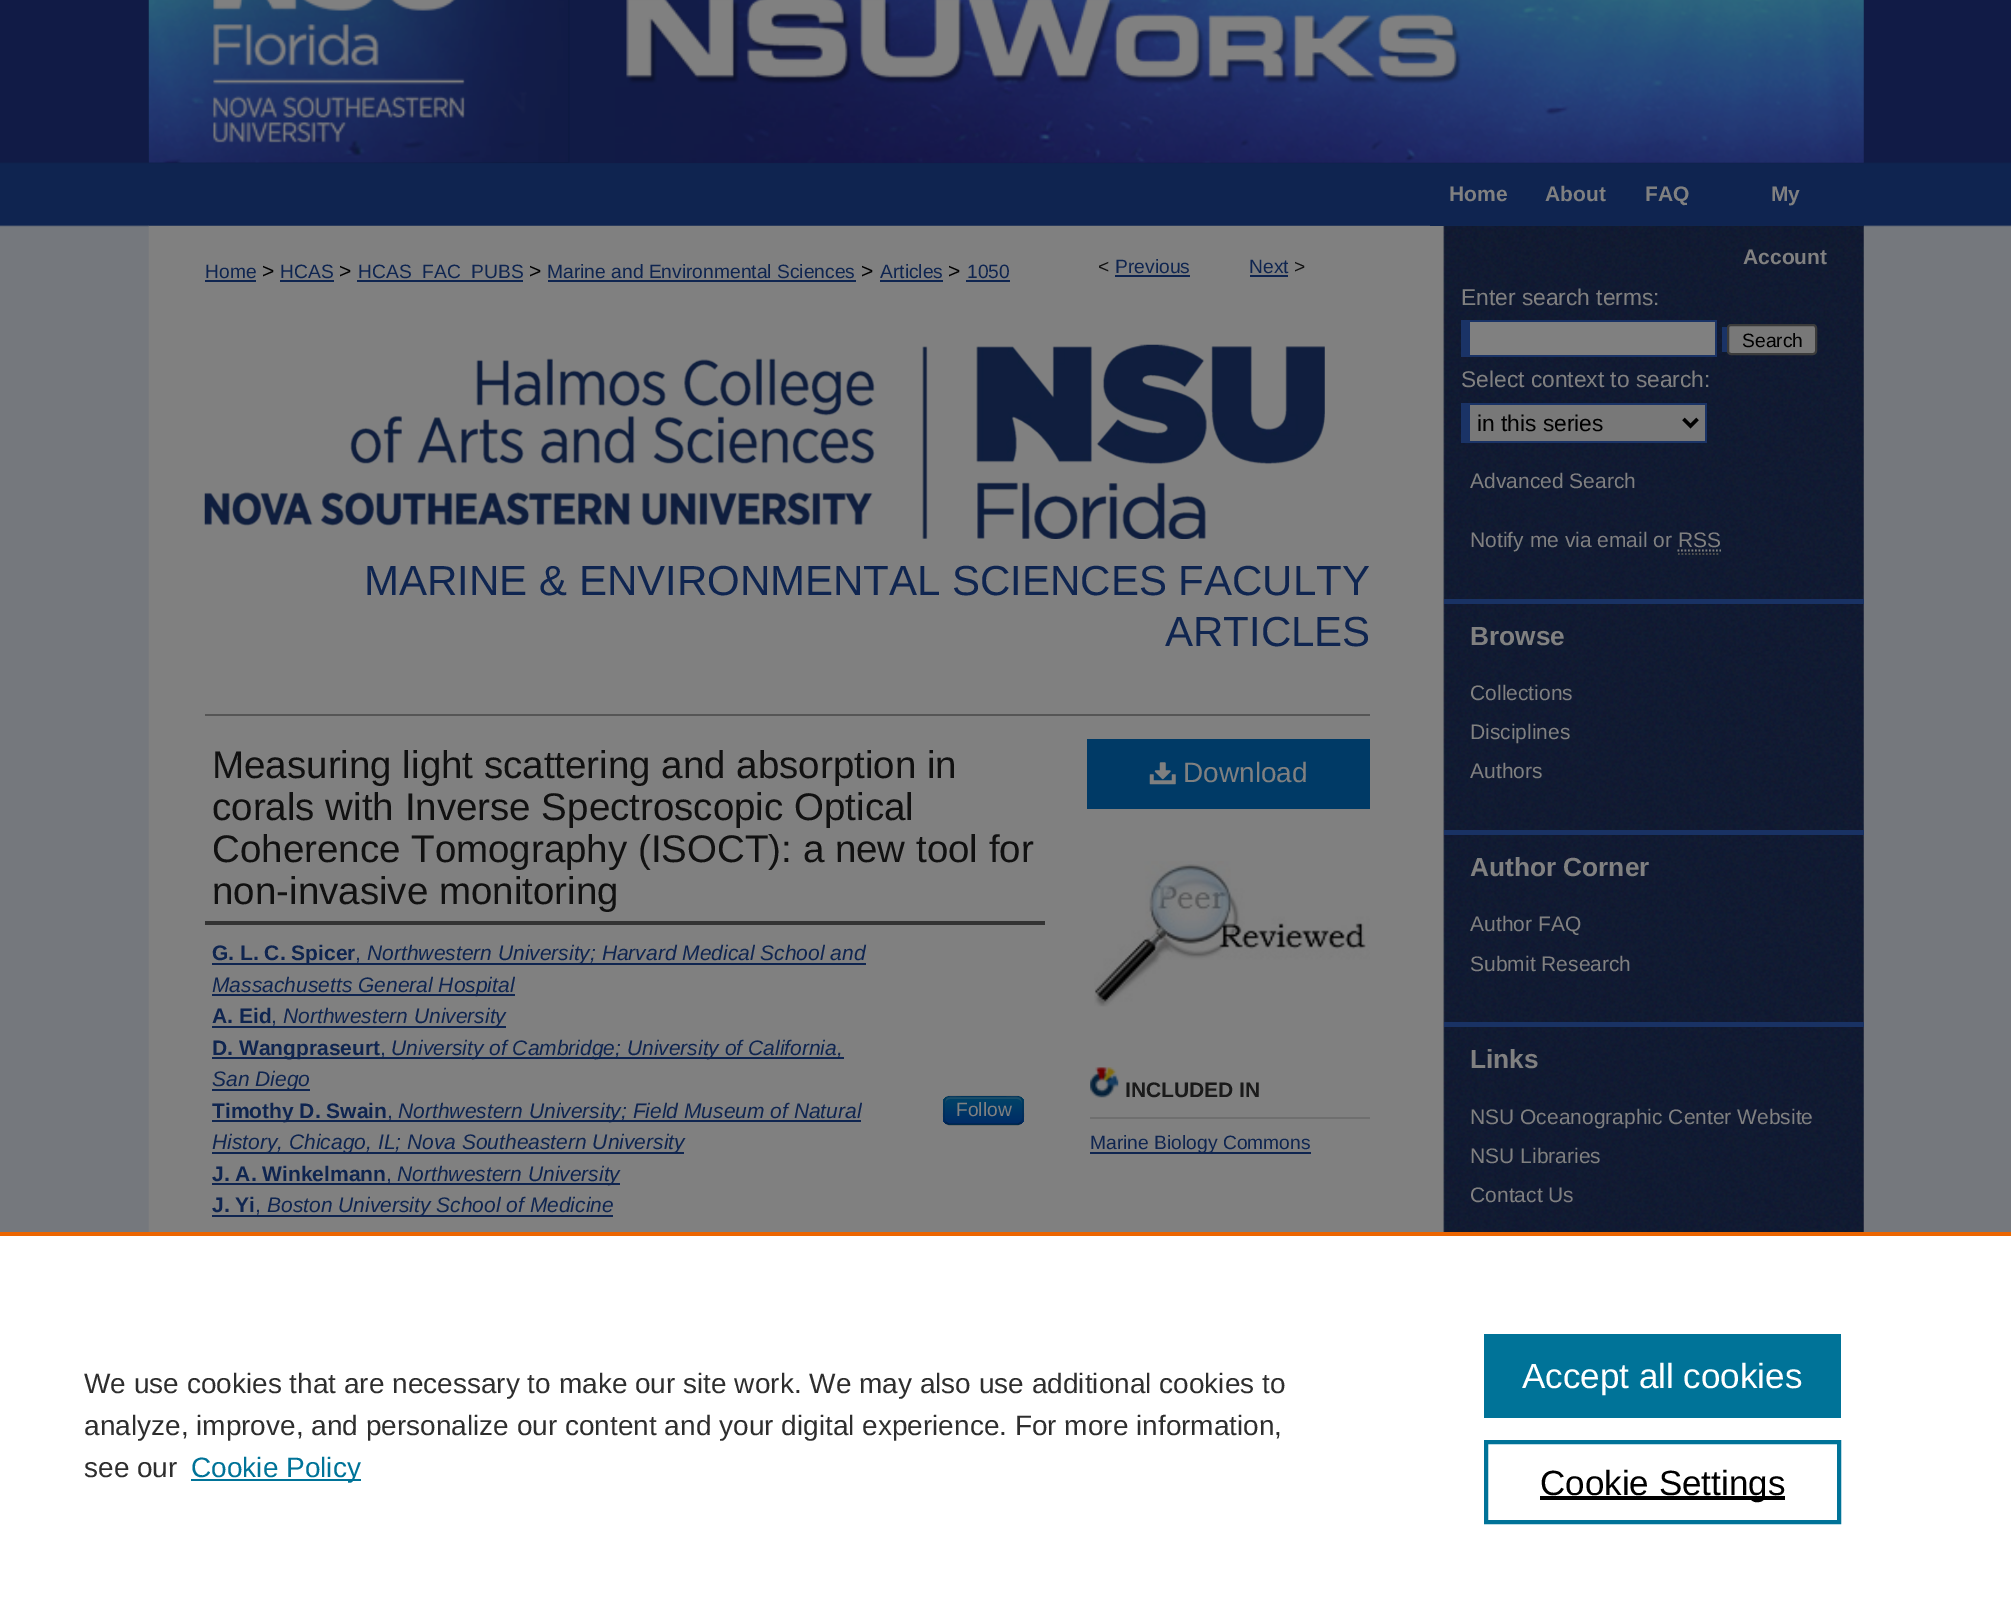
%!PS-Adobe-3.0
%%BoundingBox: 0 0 2011 1616
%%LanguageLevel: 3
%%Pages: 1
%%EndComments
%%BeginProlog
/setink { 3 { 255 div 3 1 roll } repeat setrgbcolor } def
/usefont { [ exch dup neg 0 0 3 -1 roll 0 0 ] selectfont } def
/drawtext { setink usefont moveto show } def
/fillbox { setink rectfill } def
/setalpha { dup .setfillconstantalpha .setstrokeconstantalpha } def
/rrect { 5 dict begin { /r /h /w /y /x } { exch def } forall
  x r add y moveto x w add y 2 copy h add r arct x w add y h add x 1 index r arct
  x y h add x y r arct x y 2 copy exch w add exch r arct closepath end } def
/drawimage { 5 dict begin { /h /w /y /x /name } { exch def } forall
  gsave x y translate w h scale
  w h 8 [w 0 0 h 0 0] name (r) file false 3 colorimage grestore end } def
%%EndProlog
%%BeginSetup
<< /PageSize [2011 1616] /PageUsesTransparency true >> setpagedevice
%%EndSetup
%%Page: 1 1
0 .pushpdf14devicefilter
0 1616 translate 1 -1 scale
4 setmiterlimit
0 0 2011 1616 117 120 125 fillbox
(assets/img1.rgb) 0 0 2011 227 drawimage
149 162 1715 1 17 27 70 fillbox
(assets/img2.rgb) 148 0 1716 163 drawimage
(assets/img3.rgb) 148 0 421 163 drawimage
149 225 1281 1 15 37 80 fillbox
(Home) 1449 201 /LiberationSans-Bold 21 128 128 128 drawtext
(About) 1545 201 /LiberationSans-Bold 21 128 128 128 drawtext
(FAQ) 1645 201 /LiberationSans-Bold 21 128 128 128 drawtext
(assets/img4.rgb) 148 225 1716 1007 drawimage
1430 225 434 1 15 37 80 fillbox
(My) 1771 201 /LiberationSans-Bold 21 128 128 128 drawtext
(Account) 1743 264 /LiberationSans-Bold 21 128 128 128 drawtext
(Home) 205 278 /LiberationSans-Regular 19.25 15 37 80 drawtext
205 280 51 2 15 37 80 fillbox
(>) 262 278 /LiberationSans-Regular 21 0 0 0 drawtext
(HCAS) 280 278 /LiberationSans-Regular 19.25 15 37 80 drawtext
280 280 54 2 15 37 80 fillbox
(>) 339 278 /LiberationSans-Regular 21 0 0 0 drawtext
357 280 166 2 15 37 80 fillbox
(HCAS_FAC_PUBS) 358 278 /LiberationSans-Regular 19.25 15 37 80 drawtext
(>) 529 278 /LiberationSans-Regular 21 0 0 0 drawtext
(Marine and Environmental Sciences) 547 278 /LiberationSans-Regular 19.25 15 37 80 drawtext
548 280 308 2 15 37 80 fillbox
(>) 861 278 /LiberationSans-Regular 21 0 0 0 drawtext
(Articles) 880 278 /LiberationSans-Regular 19.25 15 37 80 drawtext
880 280 63 2 15 37 80 fillbox
(>) 948 278 /LiberationSans-Regular 21 0 0 0 drawtext
(1050) 967 278 /LiberationSans-Regular 19.25 15 37 80 drawtext
966 280 44 2 15 37 80 fillbox
(<) 1098 273 /LiberationSans-Regular 19.25 17 17 17 drawtext
(Previous) 1115 273 /LiberationSans-Regular 19.25 15 37 80 drawtext
1115 275 75 2 15 37 80 fillbox
(Next) 1249 273 /LiberationSans-Regular 19.25 15 37 80 drawtext
1250 275 38 2 15 37 80 fillbox
(>) 1294 273 /LiberationSans-Regular 19.25 17 17 17 drawtext
(assets/img5.rgb) 204 344 1121 195 drawimage
(MARINE & ENVIRONMENTAL SCIENCES FACULTY) 364 595 /LiberationSans-Regular 42 15 37 80 drawtext
(ARTICLES) 1165 646 /LiberationSans-Regular 42 15 37 80 drawtext
205 714 1165 2 85 85 85 fillbox
(Measuring light scattering and absorption in) 212 778 /LiberationSans-Regular 38.5 17 17 17 drawtext
(corals with Inverse Spectroscopic Optical) 212 820 /LiberationSans-Regular 38.5 17 17 17 drawtext
(Coherence Tomography \(ISOCT\): a new tool for) 212 862 /LiberationSans-Regular 38.5 17 17 17 drawtext
(non-invasive monitoring) 212 904 /LiberationSans-Regular 38.5 17 17 17 drawtext
205 921 840 4 51 51 51 fillbox
212 963 654 2 15 37 80 fillbox
(G. L. C. Spicer) 212 960 /LiberationSans-Bold 21 15 37 80 drawtext
(,) 355 960 /LiberationSans-Regular 21 15 37 80 drawtext
(Northwestern University; Harvard Medical School and) 367 960 /LiberationSans-Italic 21 15 37 80 drawtext
212 994 303 2 15 37 80 fillbox
(Massachusetts General Hospital) 212 992 /LiberationSans-Italic 21 15 37 80 drawtext
(A. Eid) 212 1023 /LiberationSans-Bold 21 15 37 80 drawtext
212 1026 294 2 15 37 80 fillbox
(,) 271 1023 /LiberationSans-Regular 21 15 37 80 drawtext
(Northwestern University) 283 1023 /LiberationSans-Italic 21 15 37 80 drawtext
212 1057 632 2 15 37 80 fillbox
(D. Wangpraseurt) 212 1055 /LiberationSans-Bold 21 15 37 80 drawtext
(,) 380 1055 /LiberationSans-Regular 21 15 37 80 drawtext
(University of Cambridge; University of California,) 391 1055 /LiberationSans-Italic 21 15 37 80 drawtext
212 1089 98 2 15 37 80 fillbox
(San Diego) 212 1086 /LiberationSans-Italic 21 15 37 80 drawtext
212 1120 649 2 15 37 80 fillbox
(Timothy D. Swain) 212 1118 /LiberationSans-Bold 21 15 37 80 drawtext
(,) 387 1118 /LiberationSans-Regular 21 15 37 80 drawtext
(Northwestern University; Field Museum of Natural) 398 1118 /LiberationSans-Italic 21 15 37 80 drawtext
212 1152 472 2 15 37 80 fillbox
(History, Chicago, IL; Nova Southeastern University) 212 1149 /LiberationSans-Italic 21 15 37 80 drawtext
0 58 102 setink
943 1096 81 29 7 rrect fill
gsave
943 1096 81 29 7 rrect clip newpath
gsave 943 1097 moveto 1024 1097 lineto 1024 1124 lineto 943 1124 lineto closepath clip newpath
<< /ShadingType 2 /ColorSpace /DeviceRGB /Coords [984 1097 984 1124] /Extend [true true] /Function << /FunctionType 2 /Domain [0 1] /C0 [0 0.267 0.4] /C1 [0 0.169 0.4] /N 1 >> >> shfill grestore
grestore
0.2 setalpha
128 128 128 setink
950 1099 moveto 1017 1099 lineto 1020 1099 1022 1101 1022 1104 curveto 1022 1094 1014 1097 1006 1097 curveto 961 1097 lineto 953 1097 945 1094 945 1104 curveto 945 1101 947 1099 950 1099 curveto closepath fill
0.25 setalpha
0 0 0 setink
1.8 setlinewidth
1021 1122.5 moveto 1020 1123.5 1018.5 1124.5 1017 1124.5 curveto 950 1124.5 lineto 948.5 1124.5 947 1123.5 946 1122.5 curveto stroke
0.1 setalpha
946 1122.5 moveto 943 1119.5 944 1114 944 1110.5 curveto 944 1094.5 945 1096.5 961.5 1096.5 curveto 1005.5 1096.5 lineto 1022 1096.5 1023 1094.5 1023 1110.5 curveto 1023 1114 1024 1119.5 1021 1122.5 curveto stroke
1 setalpha
(Follow) 956 1116 /LiberationSans-Regular 19.25 128 128 128 drawtext
(J. A. Winkelmann) 212 1181 /LiberationSans-Bold 21 15 37 80 drawtext
212 1183 408 2 15 37 80 fillbox
(,) 386 1181 /LiberationSans-Regular 21 15 37 80 drawtext
(Northwestern University) 397 1181 /LiberationSans-Italic 21 15 37 80 drawtext
(J. Yi) 212 1212 /LiberationSans-Bold 21 15 37 80 drawtext
212 1215 401 2 15 37 80 fillbox
(,) 255 1212 /LiberationSans-Regular 21 15 37 80 drawtext
(Boston University School of Medicine) 267 1212 /LiberationSans-Italic 21 15 37 80 drawtext
1087 739 283 70 0 58 102 fillbox
(assets/img6.rgb) 1149 762 27 23 drawimage
(Download) 1183 782 /LiberationSans-Regular 28 128 128 128 drawtext
(assets/img7.rgb) 1094 861 276 146 drawimage
(assets/img8.rgb) 1090 1067 29 31 drawimage
1090 1117 280 2 111 111 111 fillbox
(INCLUDED IN) 1125 1097 /LiberationSans-Bold 21 26 26 26 drawtext
1090 1152 221 2 15 37 80 fillbox
(Marine Biology Commons) 1090 1149 /LiberationSans-Regular 19.25 15 37 80 drawtext
(Enter search terms:) 1461 305 /LiberationSans-Regular 22.75 128 128 128 drawtext
1461 320 256 37 26 51 102 fillbox
1722 327 5 25 26 51 102 fillbox
1470 322 245 33 128 128 128 fillbox
120 120 120 setink
1728 325 88 29 3 rrect gsave fill grestore
59 59 59 setink
2 setlinewidth
stroke
(Search) 1742 347 /LiberationSans-Regular 19.25 0 0 0 drawtext
(Select context to search:) 1461 387 /LiberationSans-Regular 22.75 128 128 128 drawtext
1470 405 235 36 120 120 120 fillbox
1470 403 236 2 26 51 102 fillbox
1705 403 2 40 26 51 102 fillbox
1470 441 236 2 26 51 102 fillbox
1461 403 9 40 26 51 102 fillbox
0 0 0 setink
3.5 setlinewidth
1683.5 419 moveto 1690.5 426 lineto 1697.5 419 lineto stroke
(in this series) 1477 431 /LiberationSans-Regular 22.75 0 0 0 drawtext
(Advanced Search) 1470 488 /LiberationSans-Regular 21 128 128 128 drawtext
(Notify me via email or RSS) 1470 547 /LiberationSans-Regular 21 128 128 128 drawtext
1.8 setlinewidth
[1.75 1.75] 0 setdash
1677.5 550.5 moveto 1721 550.5 lineto stroke
77 77 77 setink
1678 554 moveto 1720 554 lineto stroke
1444 599 420 5 25 50 100 fillbox
(Browse) 1470 645 /LiberationSans-Bold 26.25 128 128 128 drawtext
(Collections) 1470 700 /LiberationSans-Regular 21 128 128 128 drawtext
(Disciplines) 1470 739 /LiberationSans-Regular 21 128 128 128 drawtext
(Authors) 1470 778 /LiberationSans-Regular 21 128 128 128 drawtext
1444 830 420 5 25 50 100 fillbox
(Author Corner) 1470 876 /LiberationSans-Bold 26.25 128 128 128 drawtext
(Author FAQ) 1470 931 /LiberationSans-Regular 21 128 128 128 drawtext
(Submit Research) 1470 971 /LiberationSans-Regular 21 128 128 128 drawtext
1444 1022 420 5 25 50 100 fillbox
(Links) 1470 1068 /LiberationSans-Bold 26.25 128 128 128 drawtext
(NSU Oceanographic Center Website) 1470 1124 /LiberationSans-Regular 21 128 128 128 drawtext
(NSU Libraries) 1470 1163 /LiberationSans-Regular 21 128 128 128 drawtext
(Contact Us) 1470 1202 /LiberationSans-Regular 21 128 128 128 drawtext
0 1236 2011 380 255 255 255 fillbox
0 1232 2011 4 235 101 0 fillbox
(We use cookies that are necessary to make our site work. We may also use additional cookies to) 84 1393 /LiberationSans-Regular 28 46 46 46 drawtext
(analyze, improve, and personalize our content and your digital experience. For more information,) 84 1435 /LiberationSans-Regular 28 46 46 46 drawtext
(see our) 84 1477 /LiberationSans-Regular 28 46 46 46 drawtext
191 1479 170 2 0 115 152 fillbox
(Cookie Policy) 191 1477 /LiberationSans-Regular 28 0 115 152 drawtext
1484 1334 357 84 0 115 152 fillbox
(Accept all cookies) 1522 1388 /LiberationSans-Regular 35 255 255 255 drawtext
0 115 152 setink
4 setlinewidth
[] 0 setdash
1486 1442 353 80 rectstroke
1540 1496 245 4 0 0 0 fillbox
(Cookie Settings) 1540 1495 /LiberationSans-Regular 35 0 0 0 drawtext
.poppdf14devicefilter showpage
%%EOF
